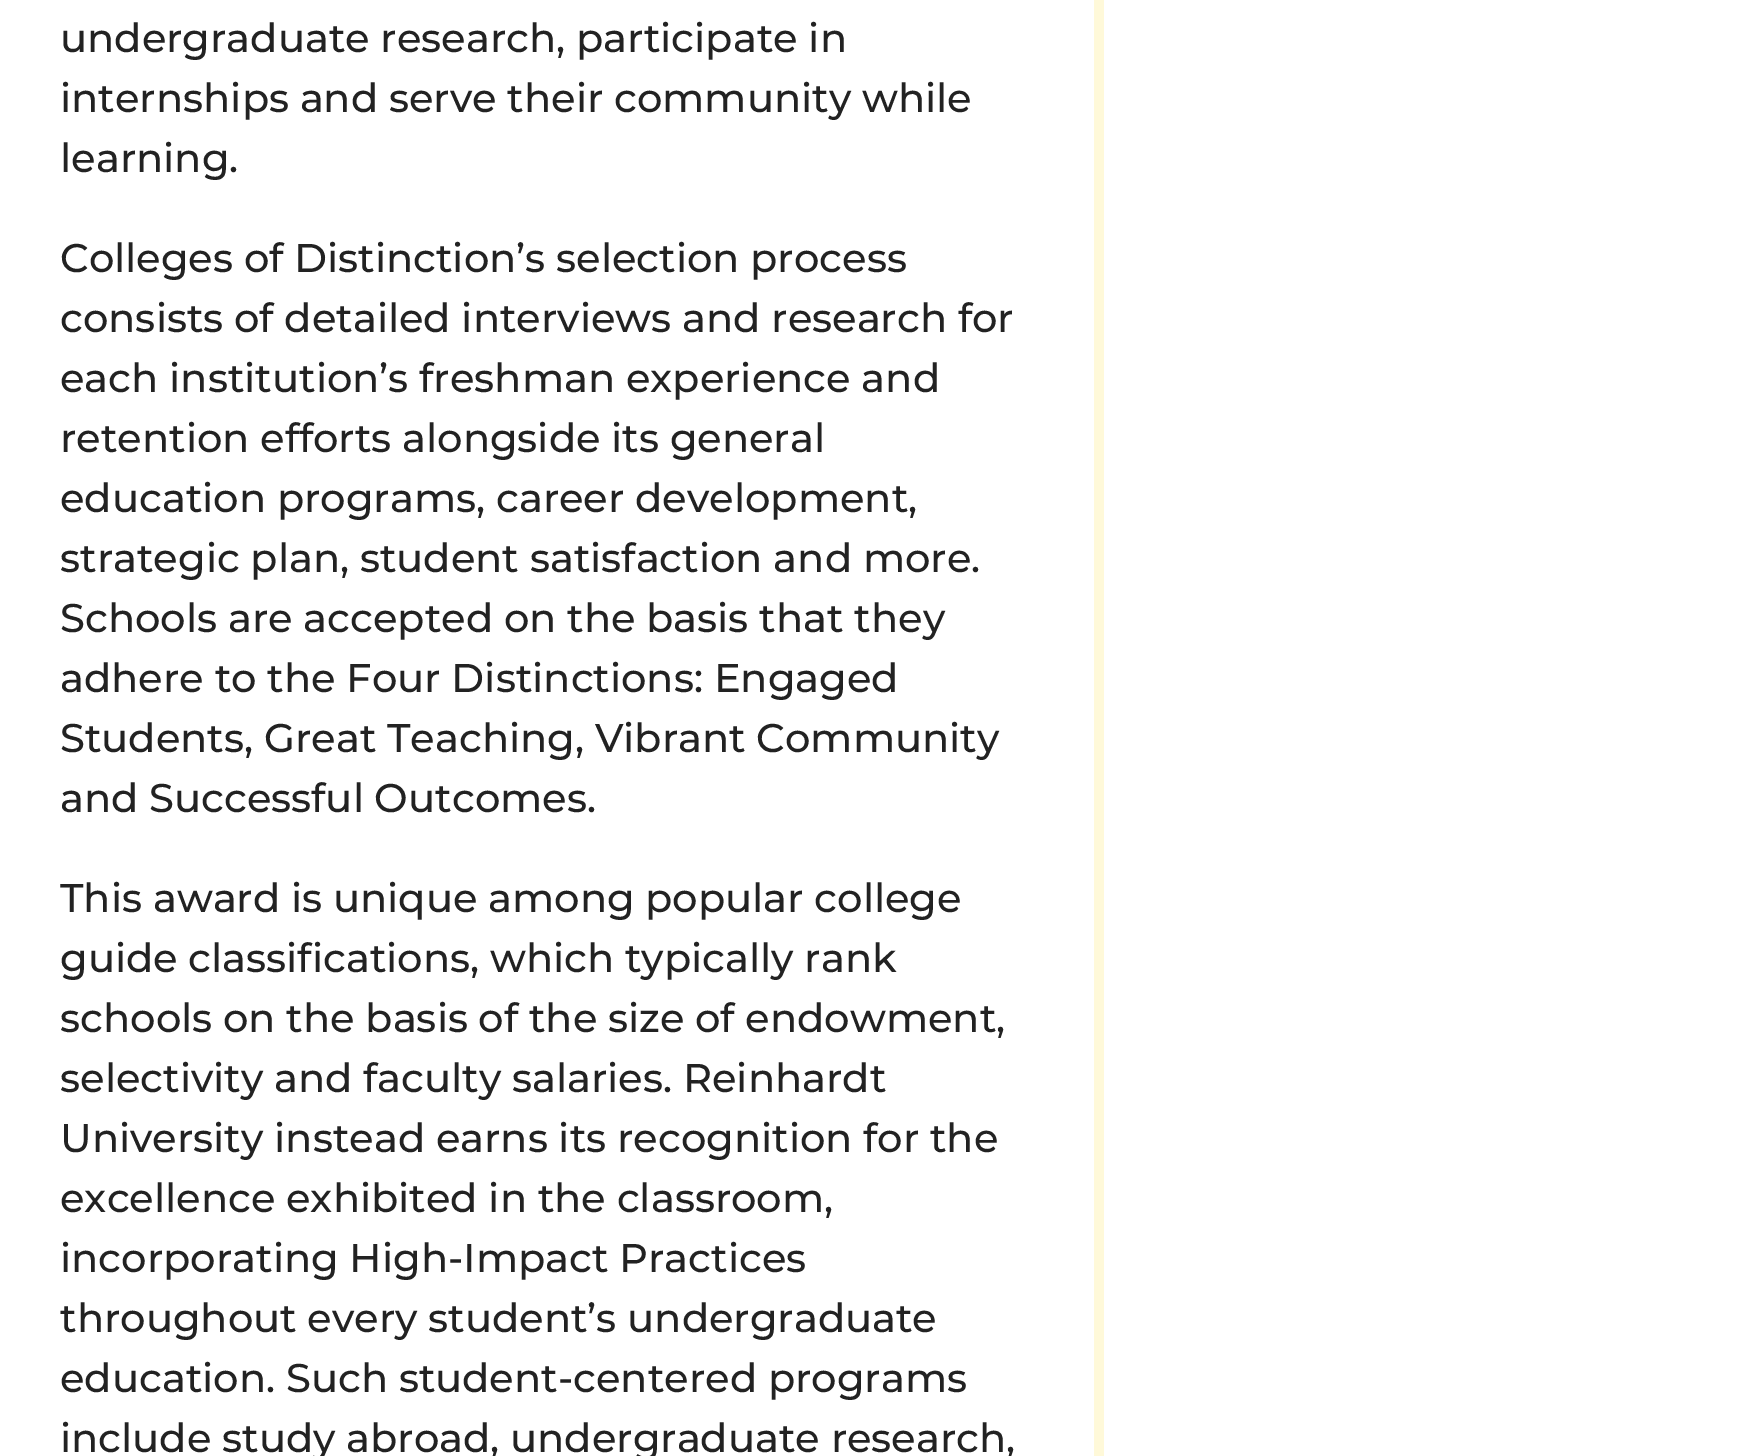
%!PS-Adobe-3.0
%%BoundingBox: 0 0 1753 1456
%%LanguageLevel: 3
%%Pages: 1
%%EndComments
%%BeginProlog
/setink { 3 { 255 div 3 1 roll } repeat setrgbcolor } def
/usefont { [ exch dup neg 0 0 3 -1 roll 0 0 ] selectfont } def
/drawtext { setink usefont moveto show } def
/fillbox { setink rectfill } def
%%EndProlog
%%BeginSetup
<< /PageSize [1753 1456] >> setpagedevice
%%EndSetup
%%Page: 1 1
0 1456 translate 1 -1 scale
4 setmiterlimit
0 0 1753 1456 255 255 255 fillbox
(undergraduate research, participate in) 60 52 /Montserrat-Medium 40 34 34 34 drawtext
(internships and serve their community while) 60 112 /Montserrat-Medium 40 34 34 34 drawtext
(learning.) 60 172 /Montserrat-Medium 40 34 34 34 drawtext
(Colleges of Distinction’s selection process) 60 272 /Montserrat-Medium 40 34 34 34 drawtext
(consists of detailed interviews and research for) 60 332 /Montserrat-Medium 40 34 34 34 drawtext
(each institution’s freshman experience and) 60 392 /Montserrat-Medium 40 34 34 34 drawtext
(retention efforts alongside its general) 60 452 /Montserrat-Medium 40 34 34 34 drawtext
(education programs, career development,) 60 512 /Montserrat-Medium 40 34 34 34 drawtext
(strategic plan, student satisfaction and more.) 60 572 /Montserrat-Medium 40 34 34 34 drawtext
(Schools are accepted on the basis that they) 60 632 /Montserrat-Medium 40 34 34 34 drawtext
(adhere to the Four Distinctions: Engaged) 60 692 /Montserrat-Medium 40 34 34 34 drawtext
(Students, Great Teaching, Vibrant Community) 60 752 /Montserrat-Medium 40 34 34 34 drawtext
(and Successful Outcomes.) 60 812 /Montserrat-Medium 40 34 34 34 drawtext
(This award is unique among popular college) 60 912 /Montserrat-Medium 40 34 34 34 drawtext
(guide classifications, which typically rank) 60 972 /Montserrat-Medium 40 34 34 34 drawtext
(schools on the basis of the size of endowment,) 60 1032 /Montserrat-Medium 40 34 34 34 drawtext
(selectivity and faculty salaries. Reinhardt) 60 1092 /Montserrat-Medium 40 34 34 34 drawtext
(University instead earns its recognition for the) 60 1152 /Montserrat-Medium 40 34 34 34 drawtext
(excellence exhibited in the classroom,) 60 1212 /Montserrat-Medium 40 34 34 34 drawtext
(incorporating High-Impact Practices) 60 1272 /Montserrat-Medium 40 34 34 34 drawtext
(throughout every student’s undergraduate) 60 1332 /Montserrat-Medium 40 34 34 34 drawtext
(education. Such student-centered programs) 60 1392 /Montserrat-Medium 40 34 34 34 drawtext
(include study abroad, undergraduate research,) 60 1452 /Montserrat-Medium 40 34 34 34 drawtext
1094 0 10 1456 255 249 217 fillbox
showpage
%%EOF
